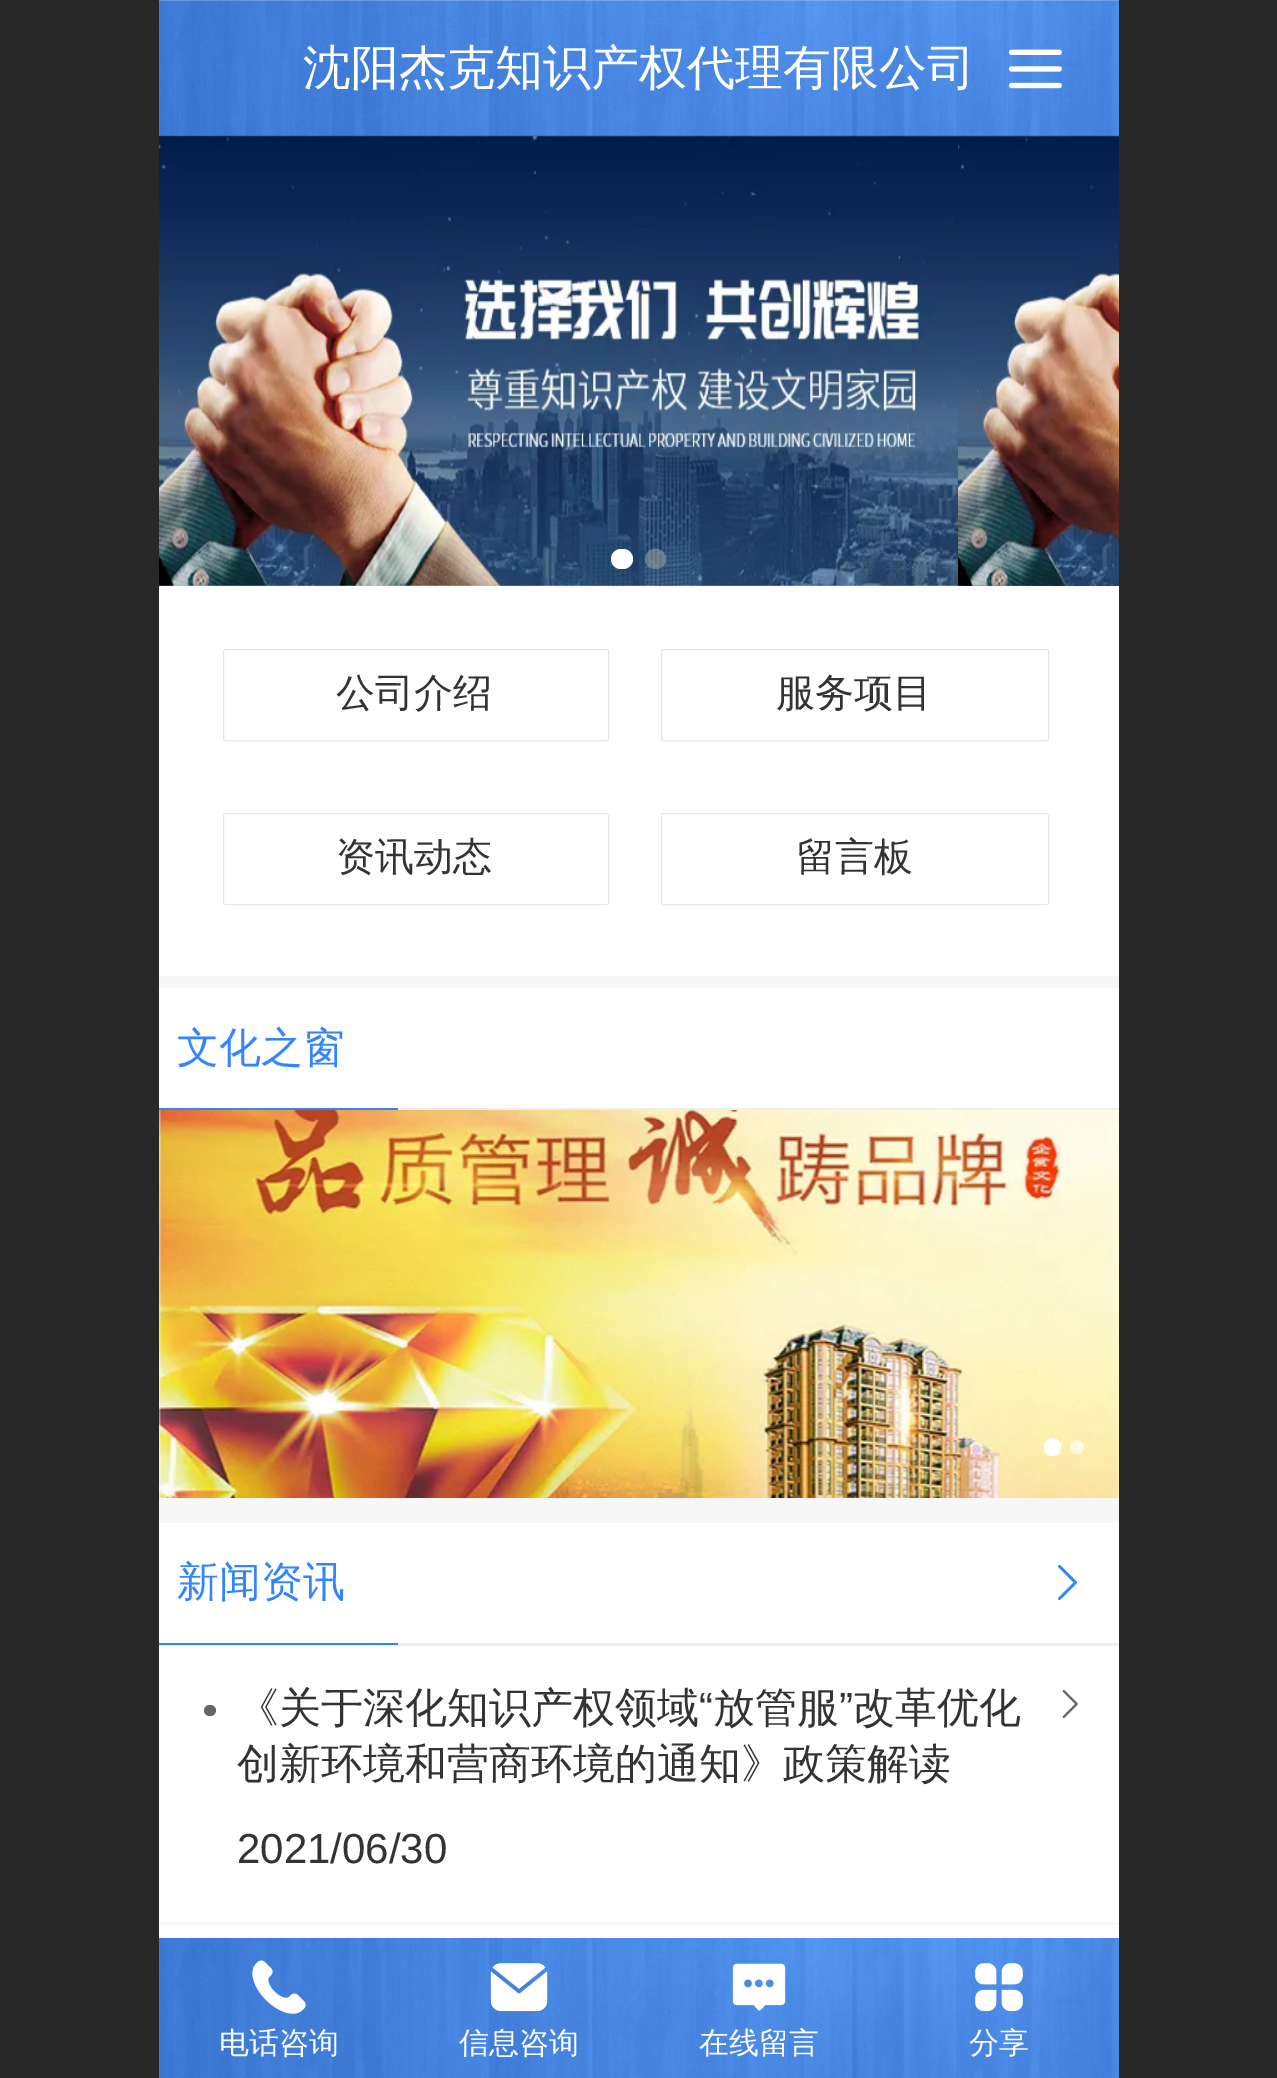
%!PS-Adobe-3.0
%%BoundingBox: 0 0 1277 2078
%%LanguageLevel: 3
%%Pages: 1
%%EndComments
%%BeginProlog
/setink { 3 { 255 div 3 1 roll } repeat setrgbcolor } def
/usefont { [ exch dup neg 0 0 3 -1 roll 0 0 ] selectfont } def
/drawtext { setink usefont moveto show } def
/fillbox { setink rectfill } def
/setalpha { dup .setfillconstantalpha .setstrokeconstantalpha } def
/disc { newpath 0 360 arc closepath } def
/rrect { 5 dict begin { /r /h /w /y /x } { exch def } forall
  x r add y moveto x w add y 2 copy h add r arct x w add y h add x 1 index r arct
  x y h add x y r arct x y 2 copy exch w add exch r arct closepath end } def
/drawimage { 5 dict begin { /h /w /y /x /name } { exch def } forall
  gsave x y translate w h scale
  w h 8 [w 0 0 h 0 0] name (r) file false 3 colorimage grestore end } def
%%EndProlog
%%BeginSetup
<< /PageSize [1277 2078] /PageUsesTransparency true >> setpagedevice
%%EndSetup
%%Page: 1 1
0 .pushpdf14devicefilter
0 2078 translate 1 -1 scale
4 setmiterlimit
0 0 1277 2078 255 255 255 fillbox
0 0 159 2078 40 40 40 fillbox
159 0 960 136 50 133 255 fillbox
(assets/img3.rgb) 159 136 799 450 drawimage
(assets/img5.rgb) 958 585 161 1 drawimage
(assets/img4.rgb) 958 136 161 450 drawimage
(assets/img1.rgb) 159 0 960 137 drawimage
0.2 setalpha
159 0 960 1 255 255 255 fillbox
0.1 setalpha
159 135 960 1 0 0 0 fillbox
1 setalpha
(沈阳杰克知识产权代理有限公司) 303 84 /WenQuanYiZenHei-Medium 48 255 255 255 drawtext
(assets/img2.rgb) 1008 49 54 40 drawimage
611 549 22 20 10 rrect fill
0.5 setalpha
171 171 171 setink
645 549 21 20 10 rrect fill
1 setalpha
230 230 230 setink
223.5 649.5 385 91 2 rrect stroke
(公司介绍) 336 706 /WenQuanYiZenHei-Medium 39 51 51 51 drawtext
230 230 230 setink
661.5 649.5 387 91 2 rrect stroke
(服务项目) 776 706 /WenQuanYiZenHei-Medium 39 51 51 51 drawtext
230 230 230 setink
223.5 813.5 385 91 2 rrect stroke
(资讯动态) 336 870 /WenQuanYiZenHei-Medium 39 51 51 51 drawtext
230 230 230 setink
661.5 813.5 387 91 2 rrect stroke
(留言板) 796 870 /WenQuanYiZenHei-Medium 39 51 51 51 drawtext
159 976 960 547 247 247 247 fillbox
159 988 960 120 255 255 255 fillbox
398 1108 721 2 238 238 238 fillbox
159 1108 239 2 50 133 255 fillbox
(文化之窗) 177 1062 /WenQuanYiZenHei-Medium 42 50 133 255 drawtext
(assets/img6.rgb) 159 1110 960 388 drawimage
255 255 255 setink
1044 1438 17 18 8.5 rrect fill
0.6 setalpha
1077 1447 7 disc fill
1 setalpha
159 1643 960 3 238 238 238 fillbox
159 1643 239 2 50 133 255 fillbox
(新闻资讯) 177 1596 /WenQuanYiZenHei-Medium 42 50 133 255 drawtext
(assets/img7.rgb) 1058 1564 19 37 drawimage
102 102 102 setink
204 1705 12 11 5.5 rrect fill
(《关于深化知识产权领域) 237 1722 /WenQuanYiZenHei-Medium 42 51 51 51 drawtext
(“) 699 1722 /LiberationSans-Regular 42 51 51 51 drawtext
(放管服) 713 1722 /WenQuanYiZenHei-Medium 42 51 51 51 drawtext
(”) 839 1722 /LiberationSans-Regular 42 51 51 51 drawtext
(改革优化) 853 1722 /WenQuanYiZenHei-Medium 42 51 51 51 drawtext
(创新环境和营商环境的通知》政策解读) 237 1778 /WenQuanYiZenHei-Medium 42 51 51 51 drawtext
(assets/img8.rgb) 1062 1689 16 30 drawimage
(2021/06/30) 237 1863 /LiberationSans-Regular 42 51 51 51 drawtext
159 1923 960 1 242 242 242 fillbox
159 1938 960 140 50 133 255 fillbox
(assets/img9.rgb) 159 1938 960 140 drawimage
(assets/img10.rgb) 252 1960 54 54 drawimage
(电话咨询) 219 2053 /WenQuanYiZenHei-Medium 30 255 255 255 drawtext
(assets/img11.rgb) 490 1963 58 49 drawimage
(信息咨询) 459 2053 /WenQuanYiZenHei-Medium 30 255 255 255 drawtext
(assets/img12.rgb) 732 1963 54 48 drawimage
(在线留言) 699 2053 /WenQuanYiZenHei-Medium 30 255 255 255 drawtext
(assets/img13.rgb) 975 1963 48 49 drawimage
(分享) 969 2053 /WenQuanYiZenHei-Medium 30 255 255 255 drawtext
1119 0 158 2078 40 40 40 fillbox
.poppdf14devicefilter showpage
%%EOF
